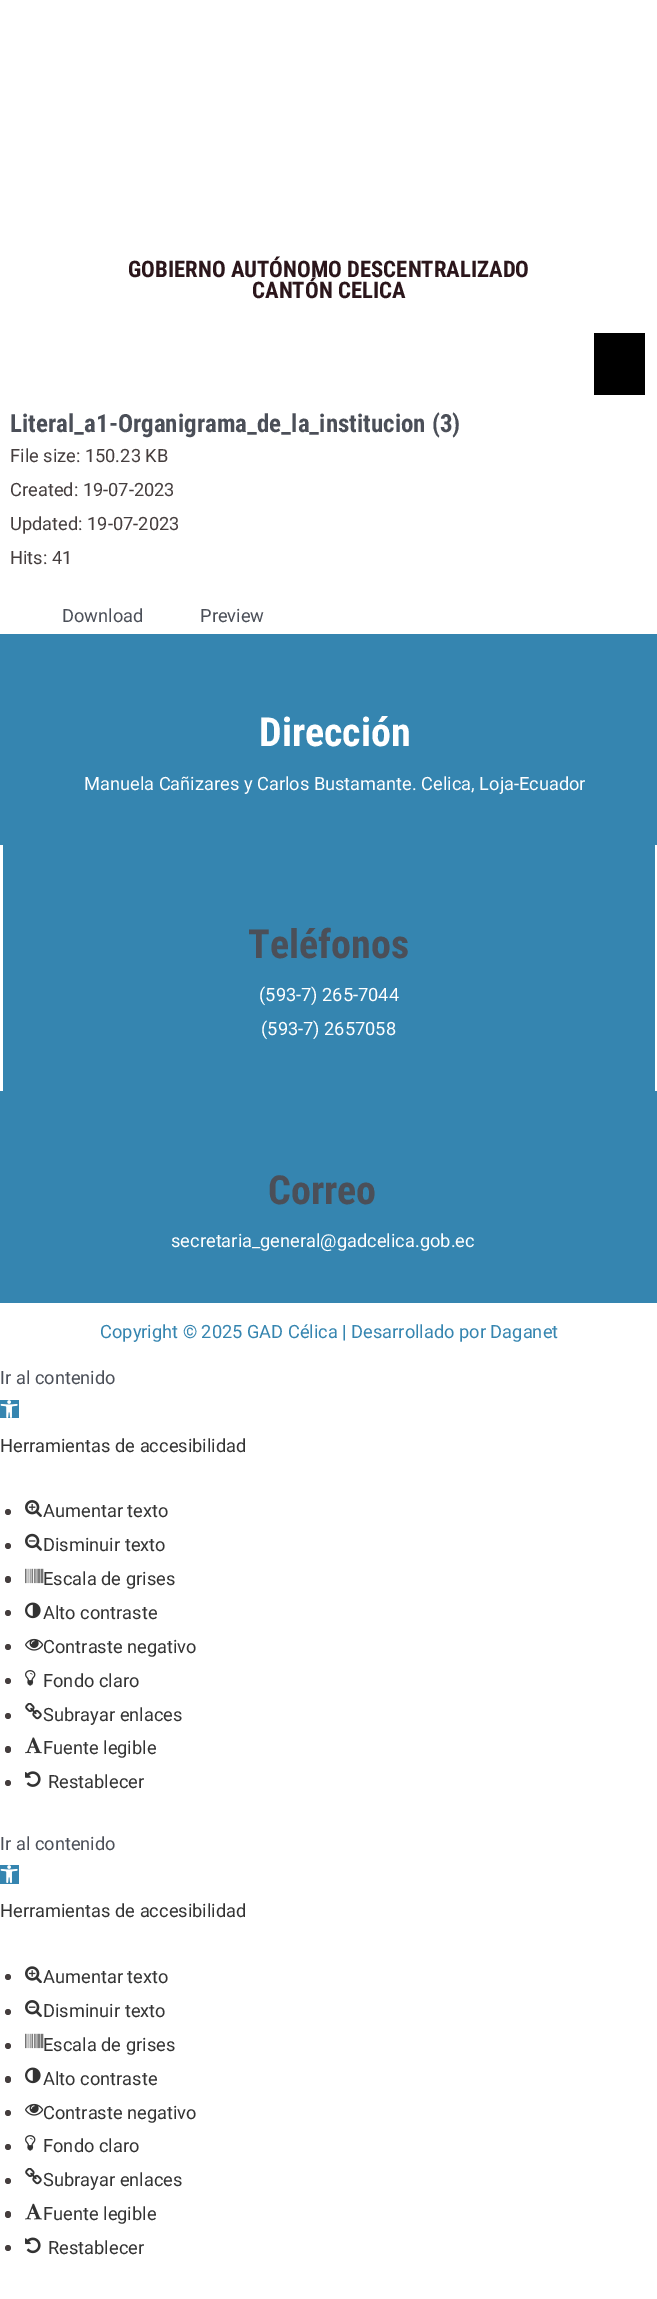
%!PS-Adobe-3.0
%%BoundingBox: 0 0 657 2299
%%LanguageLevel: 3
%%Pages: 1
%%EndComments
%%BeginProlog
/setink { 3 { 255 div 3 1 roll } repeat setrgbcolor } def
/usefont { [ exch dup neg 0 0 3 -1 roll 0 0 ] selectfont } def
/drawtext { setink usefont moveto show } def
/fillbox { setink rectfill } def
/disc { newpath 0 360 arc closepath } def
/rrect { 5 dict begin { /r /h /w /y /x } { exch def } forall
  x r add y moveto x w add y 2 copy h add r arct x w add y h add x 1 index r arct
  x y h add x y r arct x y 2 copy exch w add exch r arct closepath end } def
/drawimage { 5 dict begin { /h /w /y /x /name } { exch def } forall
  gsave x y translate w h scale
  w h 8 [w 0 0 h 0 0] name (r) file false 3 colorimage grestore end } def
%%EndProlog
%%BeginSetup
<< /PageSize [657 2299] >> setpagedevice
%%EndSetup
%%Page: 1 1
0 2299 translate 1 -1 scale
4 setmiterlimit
0 0 657 2299 255 255 255 fillbox
(GOBIERNO AUTÓNOMO DESCENTRALIZADO) 128 277 /RobotoCondensed-Bold 22.75 43 22 27 drawtext
(CANTÓN CELICA) 252 298 /RobotoCondensed-Bold 22.75 43 22 27 drawtext
594 333 51 62 0 0 0 fillbox
(Literal_a1-Organigrama_de_la_institucion \(3\)) 10 432 /RobotoCondensed-Bold 25 75 79 88 drawtext
(File size: 150.23 KB) 10 462 /Roboto-Regular 18.25 69 62 62 drawtext
(Created: 19-07-2023) 10 496 /Roboto-Regular 18.25 69 62 62 drawtext
(Updated: 19-07-2023) 10 530 /Roboto-Regular 18.25 69 62 62 drawtext
(Hits: 41) 10 564 /Roboto-Regular 18.25 69 62 62 drawtext
(Download) 62 622 /Roboto-Regular 18.25 75 79 88 drawtext
(Preview) 200 622 /Roboto-Regular 18.25 75 79 88 drawtext
0 634 657 669 53 133 176 fillbox
(Dirección) 259 746 /RobotoCondensed-Bold 40 255 255 255 drawtext
(Manuela Cañizares y Carlos Bustamante. Celica, Loja-Ecuador) 84 790 /Roboto-Regular 18.25 255 255 255 drawtext
655 845 2 246 255 255 255 fillbox
0 845 3 246 255 255 255 fillbox
(Teléfonos) 248 958 /RobotoCondensed-Bold 40 75 79 88 drawtext
(\(593-7\) 265-7044) 259 1001 /Roboto-Regular 18.25 255 255 255 drawtext
(\(593-7\) 2657058) 261 1035 /Roboto-Regular 18.25 255 255 255 drawtext
(Correo) 268 1204 /RobotoCondensed-Bold 40 75 79 88 drawtext
(secretaria_general@gadcelica.gob.ec) 171 1247 /Roboto-Regular 18.25 255 255 255 drawtext
(Copyright © 2025 GAD Célica | Desarrollado por Daganet) 100 1338 /Roboto-Regular 18.25 53 133 176 drawtext
(Ir al contenido) 0 1384 /Roboto-Regular 18.25 75 79 88 drawtext
0 1400 19 18 53 133 176 fillbox
(assets/img1.rgb) 0 1400 18 18 drawimage
(Herramientas de accesibilidad) 0 1452 /Roboto-Regular 18.25 51 51 51 drawtext
69 62 62 setink
8 1512 3 disc fill
(assets/img2.rgb) 25 1500 17 17 drawimage
(Aumentar texto) 43 1517 /Roboto-Regular 18.25 51 51 51 drawtext
69 62 62 setink
8 1546 3 disc fill
(assets/img3.rgb) 25 1533 17 18 drawimage
(Disminuir texto) 43 1551 /Roboto-Regular 18.25 51 51 51 drawtext
69 62 62 setink
5 1576 6 7 3 rrect fill
(assets/img4.rgb) 25 1568 19 16 drawimage
(Escala de grises) 43 1585 /Roboto-Regular 18.25 51 51 51 drawtext
69 62 62 setink
8 1613 3 disc fill
(assets/img5.rgb) 25 1602 16 17 drawimage
(Alto contraste) 43 1619 /Roboto-Regular 18.25 51 51 51 drawtext
69 62 62 setink
8 1647 3 disc fill
(assets/img6.rgb) 25 1638 19 13 drawimage
(Contraste negativo) 43 1653 /Roboto-Regular 18.25 51 51 51 drawtext
69 62 62 setink
8 1681 3 disc fill
(assets/img7.rgb) 25 1670 11 16 drawimage
(Fondo claro) 43 1687 /Roboto-Regular 18.25 51 51 51 drawtext
69 62 62 setink
8 1716 3 disc fill
(assets/img8.rgb) 25 1703 17 17 drawimage
(Subrayar enlaces) 43 1721 /Roboto-Regular 18.25 51 51 51 drawtext
69 62 62 setink
5 1746 6 7 3 rrect fill
(assets/img9.rgb) 25 1737 17 17 drawimage
(Fuente legible) 43 1754 /Roboto-Regular 18.25 51 51 51 drawtext
69 62 62 setink
8 1783 3 disc fill
(assets/img10.rgb) 25 1771 16 16 drawimage
(Restablecer) 48 1788 /Roboto-Regular 18.25 51 51 51 drawtext
(Ir al contenido) 0 1850 /Roboto-Regular 18.25 75 79 88 drawtext
0 1865 19 19 53 133 176 fillbox
(assets/img11.rgb) 0 1865 18 19 drawimage
(Herramientas de accesibilidad) 0 1917 /Roboto-Regular 18.25 51 51 51 drawtext
69 62 62 setink
8 1977 3 disc fill
(assets/img12.rgb) 25 1966 17 17 drawimage
(Aumentar texto) 43 1983 /Roboto-Regular 18.25 51 51 51 drawtext
69 62 62 setink
8 2012 3 disc fill
(assets/img13.rgb) 25 2000 17 17 drawimage
(Disminuir texto) 43 2017 /Roboto-Regular 18.25 51 51 51 drawtext
69 62 62 setink
8 2046 3 disc fill
(assets/img4.rgb) 25 2033 19 16 drawimage
(Escala de grises) 43 2051 /Roboto-Regular 18.25 51 51 51 drawtext
69 62 62 setink
5 2076 6 7 3 rrect fill
(assets/img5.rgb) 25 2067 16 17 drawimage
(Alto contraste) 43 2085 /Roboto-Regular 18.25 51 51 51 drawtext
69 62 62 setink
8 2113 3 disc fill
(assets/img6.rgb) 25 2103 19 13 drawimage
(Contraste negativo) 43 2119 /Roboto-Regular 18.25 51 51 51 drawtext
69 62 62 setink
8 2147 3 disc fill
(assets/img7.rgb) 25 2135 11 16 drawimage
(Fondo claro) 43 2152 /Roboto-Regular 18.25 51 51 51 drawtext
69 62 62 setink
8 2181 3 disc fill
(assets/img8.rgb) 25 2168 17 17 drawimage
(Subrayar enlaces) 43 2186 /Roboto-Regular 18.25 51 51 51 drawtext
69 62 62 setink
5 2211 6 7 3 rrect fill
(assets/img14.rgb) 25 2203 17 17 drawimage
(Fuente legible) 43 2220 /Roboto-Regular 18.25 51 51 51 drawtext
69 62 62 setink
8 2248 3 disc fill
(assets/img15.rgb) 25 2237 16 17 drawimage
(Restablecer) 48 2254 /Roboto-Regular 18.25 51 51 51 drawtext
showpage
%%EOF
